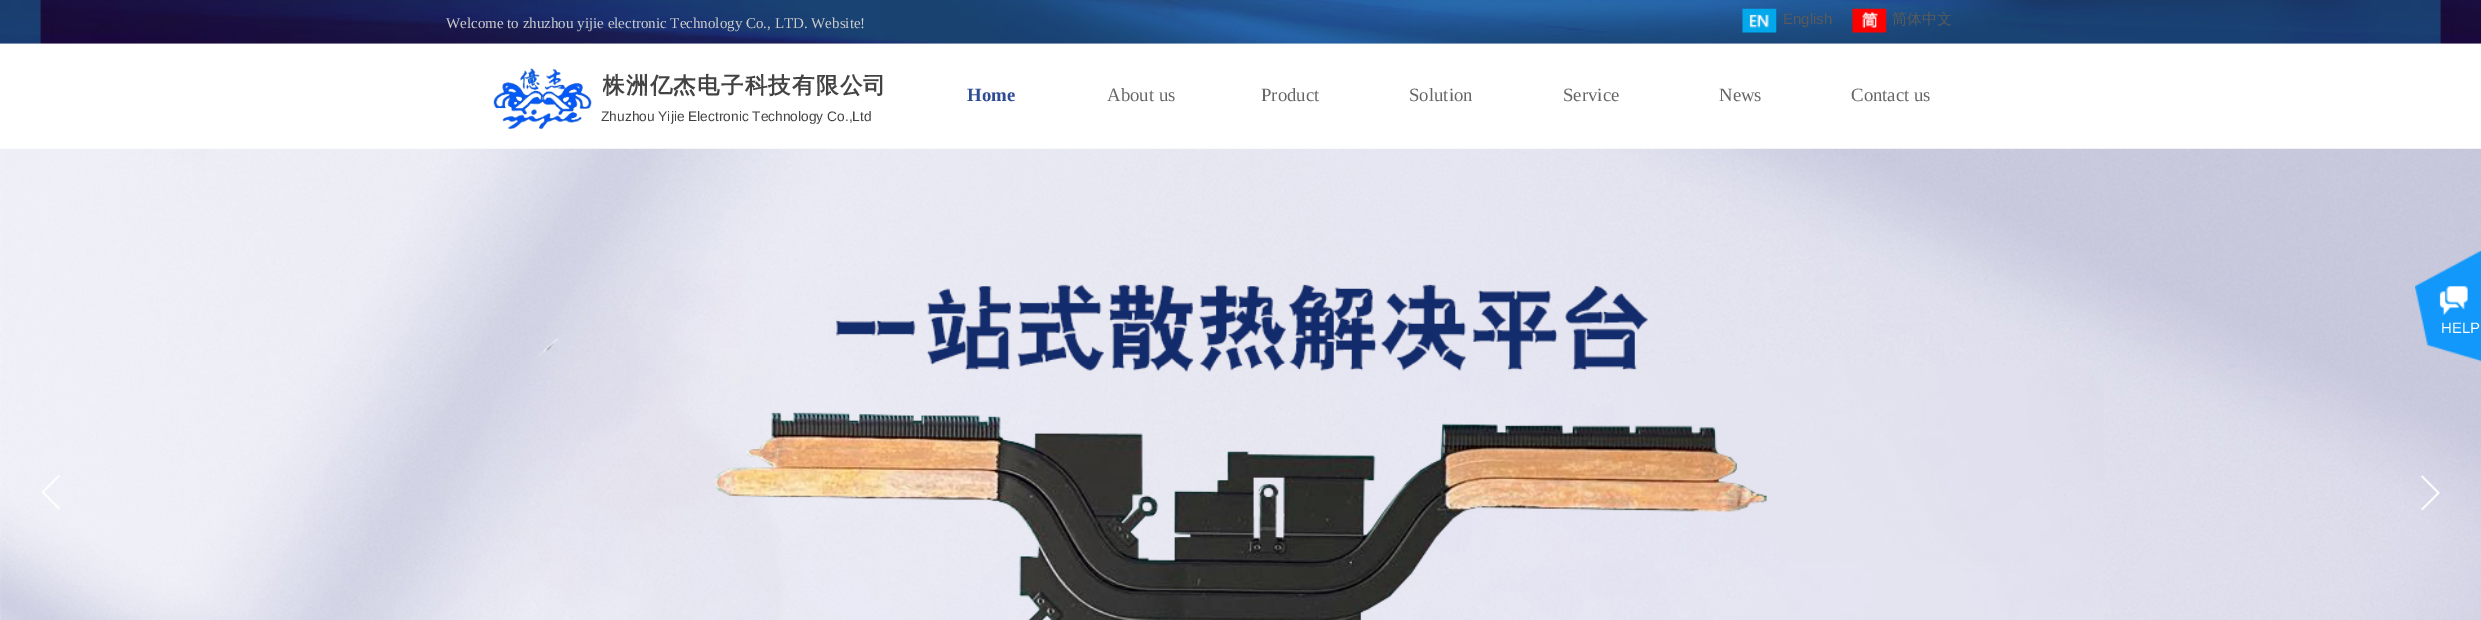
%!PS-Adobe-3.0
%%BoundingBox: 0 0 2481 620
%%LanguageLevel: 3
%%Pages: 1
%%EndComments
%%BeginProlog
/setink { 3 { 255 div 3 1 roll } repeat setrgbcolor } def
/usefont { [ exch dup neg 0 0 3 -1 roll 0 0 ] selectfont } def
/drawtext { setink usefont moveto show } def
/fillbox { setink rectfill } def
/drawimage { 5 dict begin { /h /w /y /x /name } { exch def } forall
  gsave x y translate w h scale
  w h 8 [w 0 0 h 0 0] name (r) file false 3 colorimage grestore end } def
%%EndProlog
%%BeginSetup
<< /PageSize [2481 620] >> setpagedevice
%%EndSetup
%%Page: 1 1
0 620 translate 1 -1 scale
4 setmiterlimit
0 0 2481 620 255 255 255 fillbox
(assets/img1.rgb) 0 0 2481 44 drawimage
(Welcome to zhuzhou yijie electronic Technology Co., LTD. Website!) 446 28 /LiberationSerif-Regular 15 204 204 204 drawtext
(assets/img2.rgb) 1742 8 35 25 drawimage
(English) 1783 24 /LiberationSans-Regular 15 90 90 90 drawtext
(assets/img3.rgb) 1852 8 35 25 drawimage
(简体中文) 1892 24 /WenQuanYiZenHei-Medium 15 90 90 90 drawtext
(assets/img4.rgb) 0 43 2481 106 drawimage
(assets/img5.rgb) 493 68 99 61 drawimage
gsave
603 70 295 38 rectclip
/WenQuanYiZenHei-Bold 22.5 usefont
67 67 67 setink
602 93 moveto 1.25 0 (株洲亿杰电子科技有限公司) ashow
grestore
(Home) 967 101 /LiberationSerif-Bold 18.75 47 77 147 drawtext
(About us) 1107 101 /LiberationSerif-Regular 18.75 102 102 102 drawtext
(Product) 1261 101 /LiberationSerif-Regular 18.75 102 102 102 drawtext
(Solution) 1409 101 /LiberationSerif-Regular 18.75 102 102 102 drawtext
(Service) 1563 101 /LiberationSerif-Regular 18.75 102 102 102 drawtext
(News) 1719 101 /LiberationSerif-Regular 18.75 102 102 102 drawtext
(Contact us) 1851 101 /LiberationSerif-Regular 18.75 102 102 102 drawtext
(Zhuzhou Yijie Electronic Technology Co.,Ltd) 601 121 /LiberationSans-Regular 13.75 67 67 67 drawtext
(assets/img6.rgb) 0 148 2481 472 drawimage
(assets/img7.rgb) 41 475 19 35 drawimage
(assets/img8.rgb) 2421 475 19 36 drawimage
(assets/img9.rgb) 2415 250 66 112 drawimage
(HELP) 2441 333 /LiberationSans-Regular 15 255 255 255 drawtext
showpage
%%EOF
